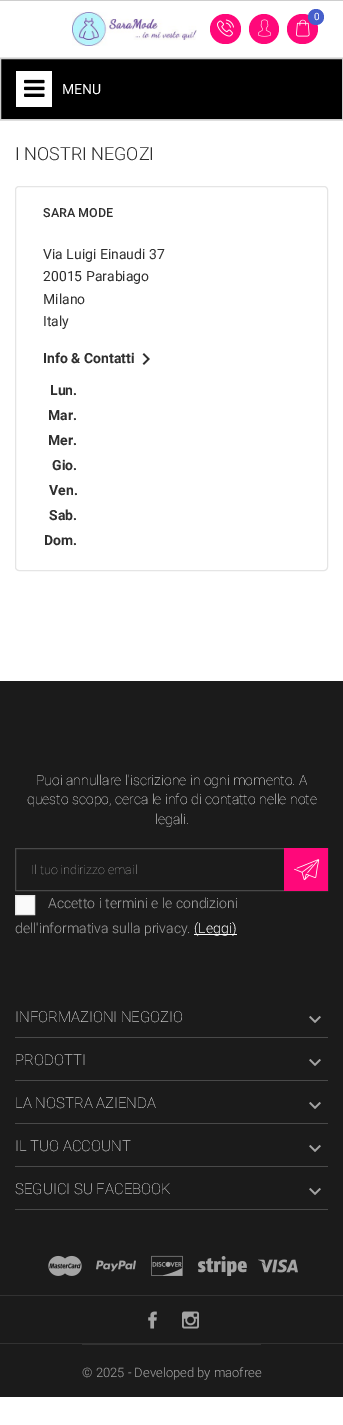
%!PS-Adobe-3.0
%%BoundingBox: 0 0 343 1425
%%LanguageLevel: 3
%%Pages: 1
%%EndComments
%%BeginProlog
/setink { 3 { 255 div 3 1 roll } repeat setrgbcolor } def
/usefont { [ exch dup neg 0 0 3 -1 roll 0 0 ] selectfont } def
/drawtext { setink usefont moveto show } def
/fillbox { setink rectfill } def
/disc { newpath 0 360 arc closepath } def
/rrect { 5 dict begin { /r /h /w /y /x } { exch def } forall
  x r add y moveto x w add y 2 copy h add r arct x w add y h add x 1 index r arct
  x y h add x y r arct x y 2 copy exch w add exch r arct closepath end } def
/drawimage { 5 dict begin { /h /w /y /x /name } { exch def } forall
  gsave x y translate w h scale
  w h 8 [w 0 0 h 0 0] name (r) file false 3 colorimage grestore end } def
%%EndProlog
%%BeginSetup
<< /PageSize [343 1425] >> setpagedevice
%%EndSetup
%%Page: 1 1
0 1425 translate 1 -1 scale
4 setmiterlimit
0 0 343 1425 255 255 255 fillbox
0 0 343 1 206 206 206 fillbox
0 120 343 1 229 229 229 fillbox
0 57 343 1 229 229 229 fillbox
(assets/img1.rgb) 72 12 125 34 drawimage
255 8 122 setink
210 14 31 30 15 rrect fill
(assets/img2.rgb) 217 19 17 18 drawimage
264 29 15 disc fill
(assets/img3.rgb) 258 19 13 18 drawimage
287 14 31 30 15 rrect fill
(assets/img4.rgb) 296 19 14 18 drawimage
70 95 203 setink
316 17 8 disc fill
(0) 314 20 /Roboto-Regular 10 255 255 255 drawtext
0 0 0 setink
0.5 58.5 moveto 342.5 58.5 lineto 342.5 119.5 lineto 0.5 119.5 lineto closepath gsave fill grestore
206 206 206 setink
stroke
16 71 36 36 255 255 255 fillbox
(assets/img5.rgb) 24 79 21 18 drawimage
(MENU) 62 94 /Roboto-Regular 14 255 255 255 drawtext
(I NOSTRI NEGOZI) 15 160 /Roboto-Light 18 47 47 47 drawtext
229 229 229 setink
15.5 186.5 312 384 3.5 rrect stroke
(SARA MODE) 43 217 /Roboto-Medium 12.5 47 47 47 drawtext
(Via Luigi Einaudi 37) 43 259 /Roboto-Regular 14 47 47 47 drawtext
(20015 Parabiago) 43 281 /Roboto-Regular 14 47 47 47 drawtext
(Milano) 43 304 /Roboto-Regular 14 47 47 47 drawtext
(Italy) 43 326 /Roboto-Regular 14 47 47 47 drawtext
(Info & Contatti) 43 363 /Roboto-Bold 14 47 47 47 drawtext
(assets/img6.rgb) 142 353 8 12 drawimage
(Lun.) 50 395 /Roboto-Bold 14 47 47 47 drawtext
(Mar.) 48 420 /Roboto-Bold 14 47 47 47 drawtext
(Mer.) 48 445 /Roboto-Bold 14 47 47 47 drawtext
(Gio.) 52 470 /Roboto-Bold 14 47 47 47 drawtext
(Ven.) 49 495 /Roboto-Bold 14 47 47 47 drawtext
(Sab.) 49 520 /Roboto-Bold 14 47 47 47 drawtext
(Dom.) 44 545 /Roboto-Bold 14 47 47 47 drawtext
0 681 343 716 27 27 27 fillbox
(Puoi annullare l'iscrizione in ogni momento. A) 36 785 /Roboto-Thin 14 255 255 255 drawtext
(questo scopo, cerca le info di contatto nelle note) 27 804 /Roboto-Thin 14 255 255 255 drawtext
(legali.) 155 824 /Roboto-Thin 14 255 255 255 drawtext
73 73 73 setink
15.5 848.5 312 42 rectstroke
(Il tuo indirizzo email) 31 874 /Roboto-Thin 12.5 164 164 164 drawtext
284 848 44 43 255 8 122 fillbox
(assets/img7.rgb) 294 859 26 22 drawimage
250 250 250 setink
15.5 895.5 moveto 34.5 895.5 lineto 34.5 914.5 lineto 15.5 914.5 lineto closepath gsave fill grestore
229 229 229 setink
stroke
(Accetto i termini e le condizioni) 48 908 /Roboto-Light 14 164 164 164 drawtext
(dell'informativa sulla privacy.) 15 933 /Roboto-Light 14 164 164 164 drawtext
194 934 43 1 255 255 255 fillbox
(\(Leggi\)) 194 933 /Roboto-Light 14 255 255 255 drawtext
15 1037 313 1 73 73 73 fillbox
(INFORMAZIONI NEGOZIO) 15 1022 /Roboto-Thin 15 255 255 255 drawtext
(assets/img8.rgb) 309 1016 12 7 drawimage
15 1080 313 1 73 73 73 fillbox
(PRODOTTI) 15 1065 /Roboto-Thin 15 255 255 255 drawtext
(assets/img8.rgb) 309 1059 12 7 drawimage
15 1123 313 1 73 73 73 fillbox
(LA NOSTRA AZIENDA) 15 1108 /Roboto-Thin 15 255 255 255 drawtext
(assets/img8.rgb) 309 1102 12 7 drawimage
15 1166 313 1 73 73 73 fillbox
(IL TUO ACCOUNT) 15 1151 /Roboto-Thin 15 255 255 255 drawtext
(assets/img8.rgb) 309 1145 12 7 drawimage
15 1209 313 1 73 73 73 fillbox
(SEGUICI SU FACEBOOK) 15 1194 /Roboto-Thin 15 255 255 255 drawtext
(assets/img8.rgb) 309 1188 12 7 drawimage
(assets/img9.rgb) 48 1255 34 21 drawimage
(assets/img10.rgb) 96 1260 40 12 drawimage
(assets/img11.rgb) 151 1255 32 21 drawimage
(assets/img12.rgb) 198 1256 49 20 drawimage
(assets/img13.rgb) 258 1259 40 14 drawimage
0 1295 343 1 50 50 50 fillbox
(assets/img14.rgb) 148 1311 9 18 drawimage
(assets/img15.rgb) 182 1311 17 18 drawimage
0 1343 343 1 50 50 50 fillbox
(© 2025 - Developed by maofree) 82 1377 /Roboto-Light 13 164 164 164 drawtext
82 1344 179 1 50 50 50 fillbox
showpage
%%EOF
